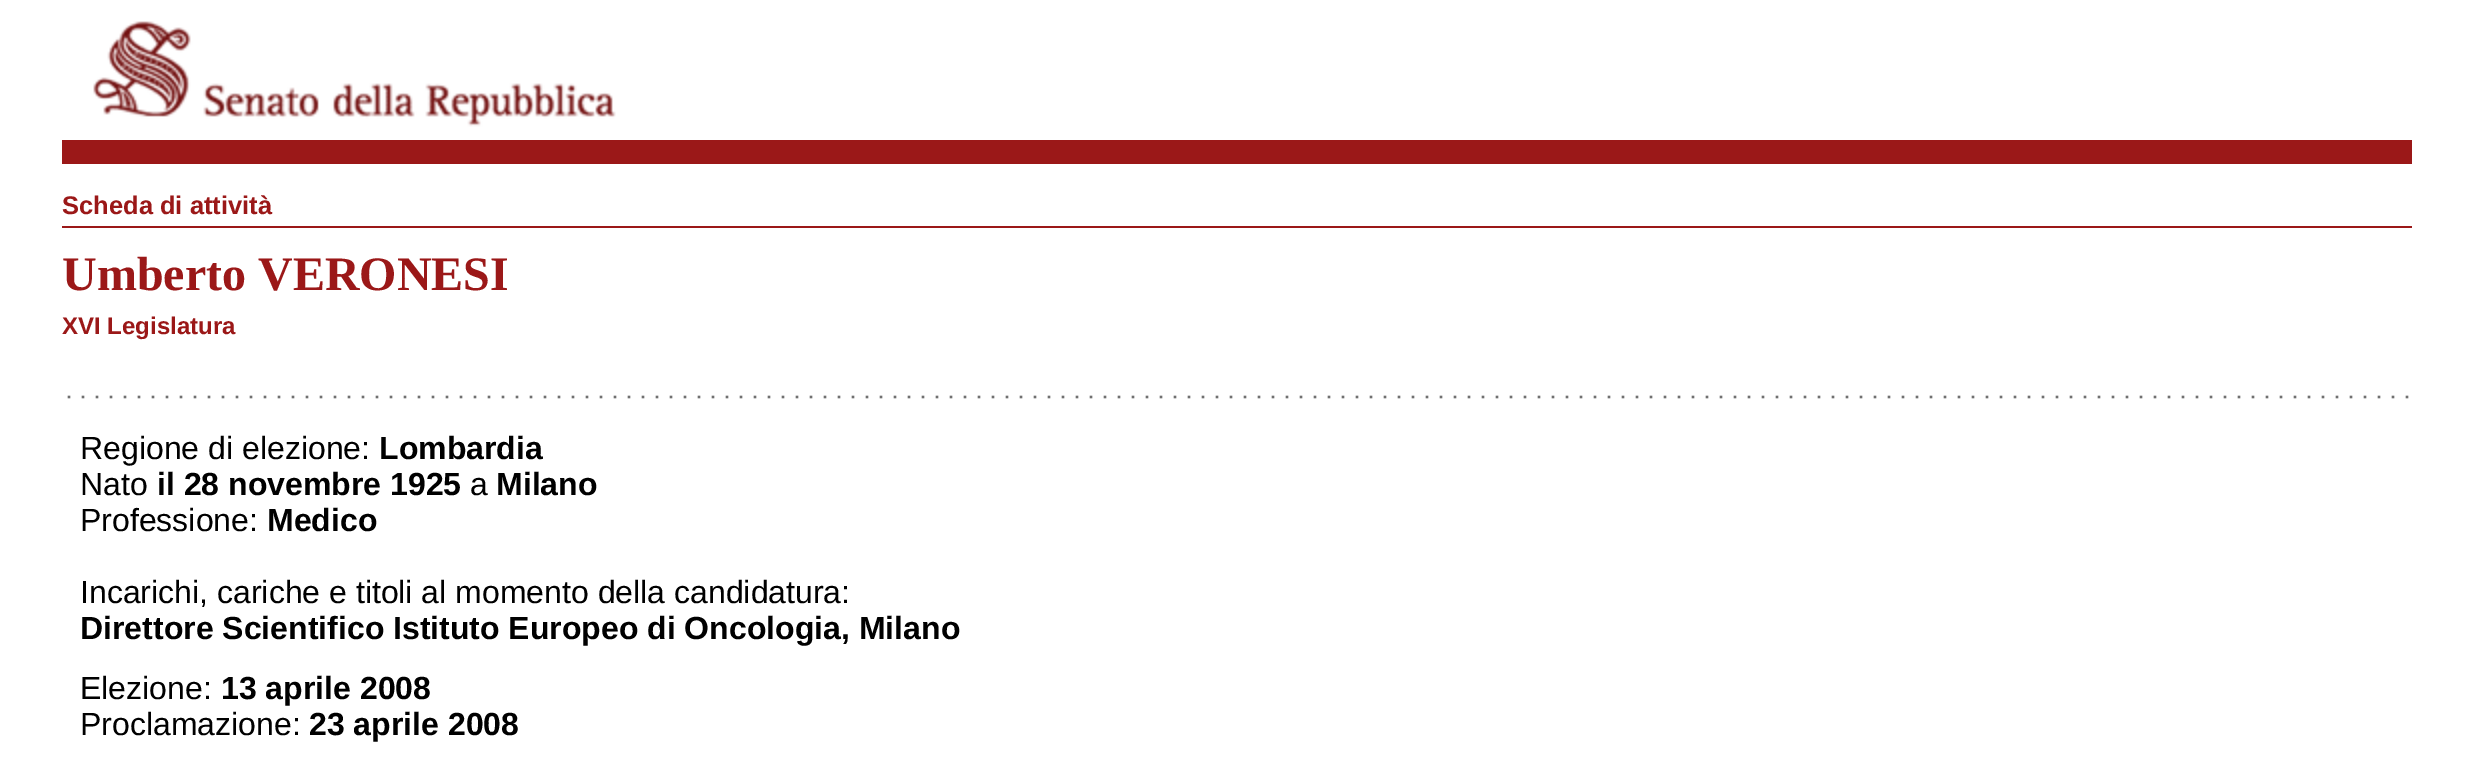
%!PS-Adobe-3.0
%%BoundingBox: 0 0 2473 761
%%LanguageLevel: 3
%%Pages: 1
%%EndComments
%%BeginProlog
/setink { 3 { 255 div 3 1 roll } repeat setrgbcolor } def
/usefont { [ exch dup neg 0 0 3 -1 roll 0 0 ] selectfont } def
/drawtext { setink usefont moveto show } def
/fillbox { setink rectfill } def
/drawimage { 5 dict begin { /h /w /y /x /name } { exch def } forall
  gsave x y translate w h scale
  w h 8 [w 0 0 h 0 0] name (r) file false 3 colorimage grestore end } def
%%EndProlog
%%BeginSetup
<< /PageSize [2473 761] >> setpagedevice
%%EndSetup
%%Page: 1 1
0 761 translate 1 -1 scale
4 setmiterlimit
0 0 2473 761 255 255 255 fillbox
62 140 2350 24 155 24 24 fillbox
(assets/img1.rgb) 93 21 523 106 drawimage
62 226 2350 2 155 24 24 fillbox
(Scheda di attività) 62 214 /LiberationSans-Bold 25.5 155 24 24 drawtext
(Umberto VERONESI) 62 290 /LiberationSerif-Bold 48 155 24 24 drawtext
(XVI Legislatura) 62 334 /LiberationSans-Bold 24 155 24 24 drawtext
(assets/img2.rgb) 67 395 2342 4 drawimage
(Regione di elezione:) 80 459 /LiberationSans-Regular 32 0 0 0 drawtext
(Lombardia) 379 459 /LiberationSans-Bold 32 0 0 0 drawtext
(Nato) 80 495 /LiberationSans-Regular 32 0 0 0 drawtext
(il 28 novembre 1925) 157 495 /LiberationSans-Bold 32 0 0 0 drawtext
(a) 470 495 /LiberationSans-Regular 32 0 0 0 drawtext
(Milano) 496 495 /LiberationSans-Bold 32 0 0 0 drawtext
(Professione:) 80 531 /LiberationSans-Regular 32 0 0 0 drawtext
(Medico) 267 531 /LiberationSans-Bold 32 0 0 0 drawtext
(Incarichi, cariche e titoli al momento della candidatura:) 80 603 /LiberationSans-Regular 32 0 0 0 drawtext
(Direttore Scientifico Istituto Europeo di Oncologia, Milano) 80 639 /LiberationSans-Bold 32 0 0 0 drawtext
(Elezione:) 80 699 /LiberationSans-Regular 32 0 0 0 drawtext
(13 aprile 2008) 221 699 /LiberationSans-Bold 32 0 0 0 drawtext
(Proclamazione:) 80 735 /LiberationSans-Regular 32 0 0 0 drawtext
(23 aprile 2008) 309 735 /LiberationSans-Bold 32 0 0 0 drawtext
showpage
%%EOF
